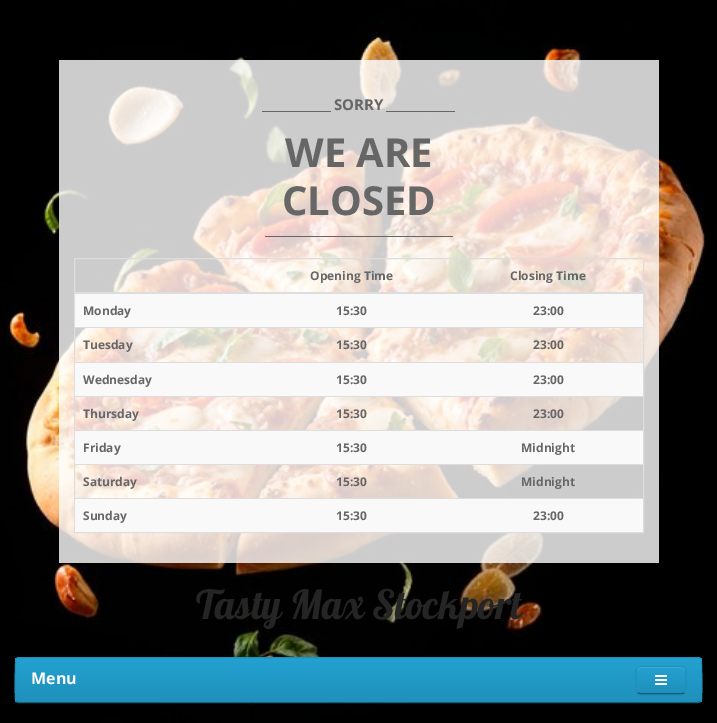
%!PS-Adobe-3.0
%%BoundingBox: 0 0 717 723
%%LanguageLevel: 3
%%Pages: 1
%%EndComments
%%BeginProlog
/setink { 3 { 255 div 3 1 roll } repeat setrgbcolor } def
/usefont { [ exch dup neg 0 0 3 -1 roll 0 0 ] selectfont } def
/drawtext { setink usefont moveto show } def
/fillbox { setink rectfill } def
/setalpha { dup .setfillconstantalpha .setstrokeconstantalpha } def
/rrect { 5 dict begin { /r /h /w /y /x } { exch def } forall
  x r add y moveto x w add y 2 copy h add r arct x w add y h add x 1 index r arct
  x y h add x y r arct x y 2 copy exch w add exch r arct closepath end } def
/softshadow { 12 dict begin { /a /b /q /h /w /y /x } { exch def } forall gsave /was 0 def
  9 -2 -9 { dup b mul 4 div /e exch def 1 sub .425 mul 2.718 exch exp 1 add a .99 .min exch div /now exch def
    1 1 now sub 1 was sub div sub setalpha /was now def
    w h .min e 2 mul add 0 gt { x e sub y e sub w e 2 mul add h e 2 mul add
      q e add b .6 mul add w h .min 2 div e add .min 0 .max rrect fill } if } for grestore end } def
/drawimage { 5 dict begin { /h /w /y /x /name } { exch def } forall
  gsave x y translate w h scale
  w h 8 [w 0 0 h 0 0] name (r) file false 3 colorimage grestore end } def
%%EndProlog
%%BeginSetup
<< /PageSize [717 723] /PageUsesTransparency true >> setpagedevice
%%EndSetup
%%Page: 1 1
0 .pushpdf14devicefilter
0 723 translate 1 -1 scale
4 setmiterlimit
0 0 717 723 255 255 255 fillbox
(assets/img1.rgb) 0 0 717 723 drawimage
0.8 setalpha
59 60 600 503 255 255 255 fillbox
1 setalpha
(SORRY) 334 110 /OpenSans-Bold 15 102 102 102 drawtext
(______________) 262 110 /OpenSans-Bold 12 102 102 102 drawtext
(______________) 386 110 /OpenSans-Bold 12 102 102 102 drawtext
(WE ARE) 285 167 /OpenSans-Bold 40 102 102 102 drawtext
(CLOSED) 282 215 /OpenSans-Bold 40 102 102 102 drawtext
(______________________________________) 265 235 /OpenSans-Bold 12 102 102 102 drawtext
221 221 221 setink
74.5 258.5 569 274 rectstroke
(Opening Time) 310 280 /OpenSans-Bold 12 102 102 102 drawtext
75 292 568 2 221 221 221 fillbox
(Closing Time) 510 280 /OpenSans-Bold 12 102 102 102 drawtext
75 294 568 33 249 249 249 fillbox
(Monday) 83 315 /OpenSans-Bold 12 102 102 102 drawtext
(15:30) 336 315 /OpenSans-Bold 12 102 102 102 drawtext
(23:00) 533 315 /OpenSans-Bold 12 102 102 102 drawtext
(Tuesday) 83 349 /OpenSans-Bold 12 102 102 102 drawtext
(15:30) 336 349 /OpenSans-Bold 12 102 102 102 drawtext
75 327 568 1 221 221 221 fillbox
(23:00) 533 349 /OpenSans-Bold 12 102 102 102 drawtext
75 363 568 33 249 249 249 fillbox
(Wednesday) 83 384 /OpenSans-Bold 12 102 102 102 drawtext
(15:30) 336 384 /OpenSans-Bold 12 102 102 102 drawtext
75 362 568 1 221 221 221 fillbox
(23:00) 533 384 /OpenSans-Bold 12 102 102 102 drawtext
(Thursday) 83 418 /OpenSans-Bold 12 102 102 102 drawtext
(15:30) 336 418 /OpenSans-Bold 12 102 102 102 drawtext
75 396 568 1 221 221 221 fillbox
(23:00) 533 418 /OpenSans-Bold 12 102 102 102 drawtext
75 431 568 33 249 249 249 fillbox
(Friday) 83 452 /OpenSans-Bold 12 102 102 102 drawtext
(15:30) 336 452 /OpenSans-Bold 12 102 102 102 drawtext
75 430 568 1 221 221 221 fillbox
(Midnight) 521 452 /OpenSans-Bold 12 102 102 102 drawtext
(Saturday) 83 486 /OpenSans-Bold 12 102 102 102 drawtext
(15:30) 336 486 /OpenSans-Bold 12 102 102 102 drawtext
75 464 568 1 221 221 221 fillbox
(Midnight) 521 486 /OpenSans-Bold 12 102 102 102 drawtext
75 499 568 33 249 249 249 fillbox
(Sunday) 83 520 /OpenSans-Bold 12 102 102 102 drawtext
(15:30) 336 520 /OpenSans-Bold 12 102 102 102 drawtext
75 498 568 1 221 221 221 fillbox
(23:00) 533 520 /OpenSans-Bold 12 102 102 102 drawtext
(Tasty Max Stockport) 196 619 /Pattaya-Regular 40 37 37 37 drawtext
34 154 200 setink
15 657 687 46 4 rrect fill
gsave
15 657 687 46 4 rrect clip newpath
gsave 15 658 moveto 702 658 lineto 702 702 lineto 15 702 lineto closepath clip newpath
<< /ShadingType 2 /ColorSpace /DeviceRGB /Coords [359 658 359 702] /Extend [true true] /Function << /FunctionType 2 /Domain [0 1] /C0 [0.137 0.631 0.82] /C1 [0.122 0.565 0.733] /N 1 >> >> shfill grestore
grestore
20 94 122 setink
700.5 701.5 moveto 698 702.5 lineto 19 702.5 lineto 16.5 701.5 lineto stroke
31 144 187 setink
16.5 701.5 moveto 15.5 699.5 lineto 15 695.5 15 661 16 659 curveto 18.5 657.5 lineto 358.5 657.5 lineto 698.5 657.5 lineto 701 659 lineto 702 661 702 695.5 701.5 699.5 curveto 700.5 701.5 lineto stroke
(Menu) 31 684 /OpenSans-Bold 16 255 255 255 drawtext
0 0 0 setink
636 667 50 28 4 1 0.05 softshadow
34 154 200 setink
636 666 50 28 4 rrect fill
gsave
636 666 50 28 4 rrect clip newpath
gsave 636 667 moveto 686 667 lineto 686 693 lineto 636 693 lineto closepath clip newpath
<< /ShadingType 2 /ColorSpace /DeviceRGB /Coords [661 667 661 693] /Extend [true true] /Function << /FunctionType 2 /Domain [0 1] /C0 [0.137 0.631 0.82] /C1 [0.122 0.565 0.733] /N 1 >> >> shfill grestore
grestore
79 180 218 setink
640 668 moveto 682 668 lineto 684 668 685 669 685 671 curveto 685 665 679 667 675 667 curveto 647 667 lineto 643 667 637 665 637 671 curveto 637 669 638 668 640 668 curveto closepath fill
20 94 122 setink
684.5 692.5 moveto 684 693 683 693.5 682 693.5 curveto 640 693.5 lineto 639 693.5 638 693 637.5 692.5 curveto stroke
31 144 187 setink
637.5 692.5 moveto 635.5 690 636.5 682.5 636.5 680 curveto 636.5 667 634 666.5 647 666.5 curveto 675 666.5 lineto 688 666.5 685.5 667 685.5 680 curveto 685.5 682.5 686.5 690 684.5 692.5 curveto stroke
(assets/img2.rgb) 655 675 12 10 drawimage
.poppdf14devicefilter showpage
%%EOF
